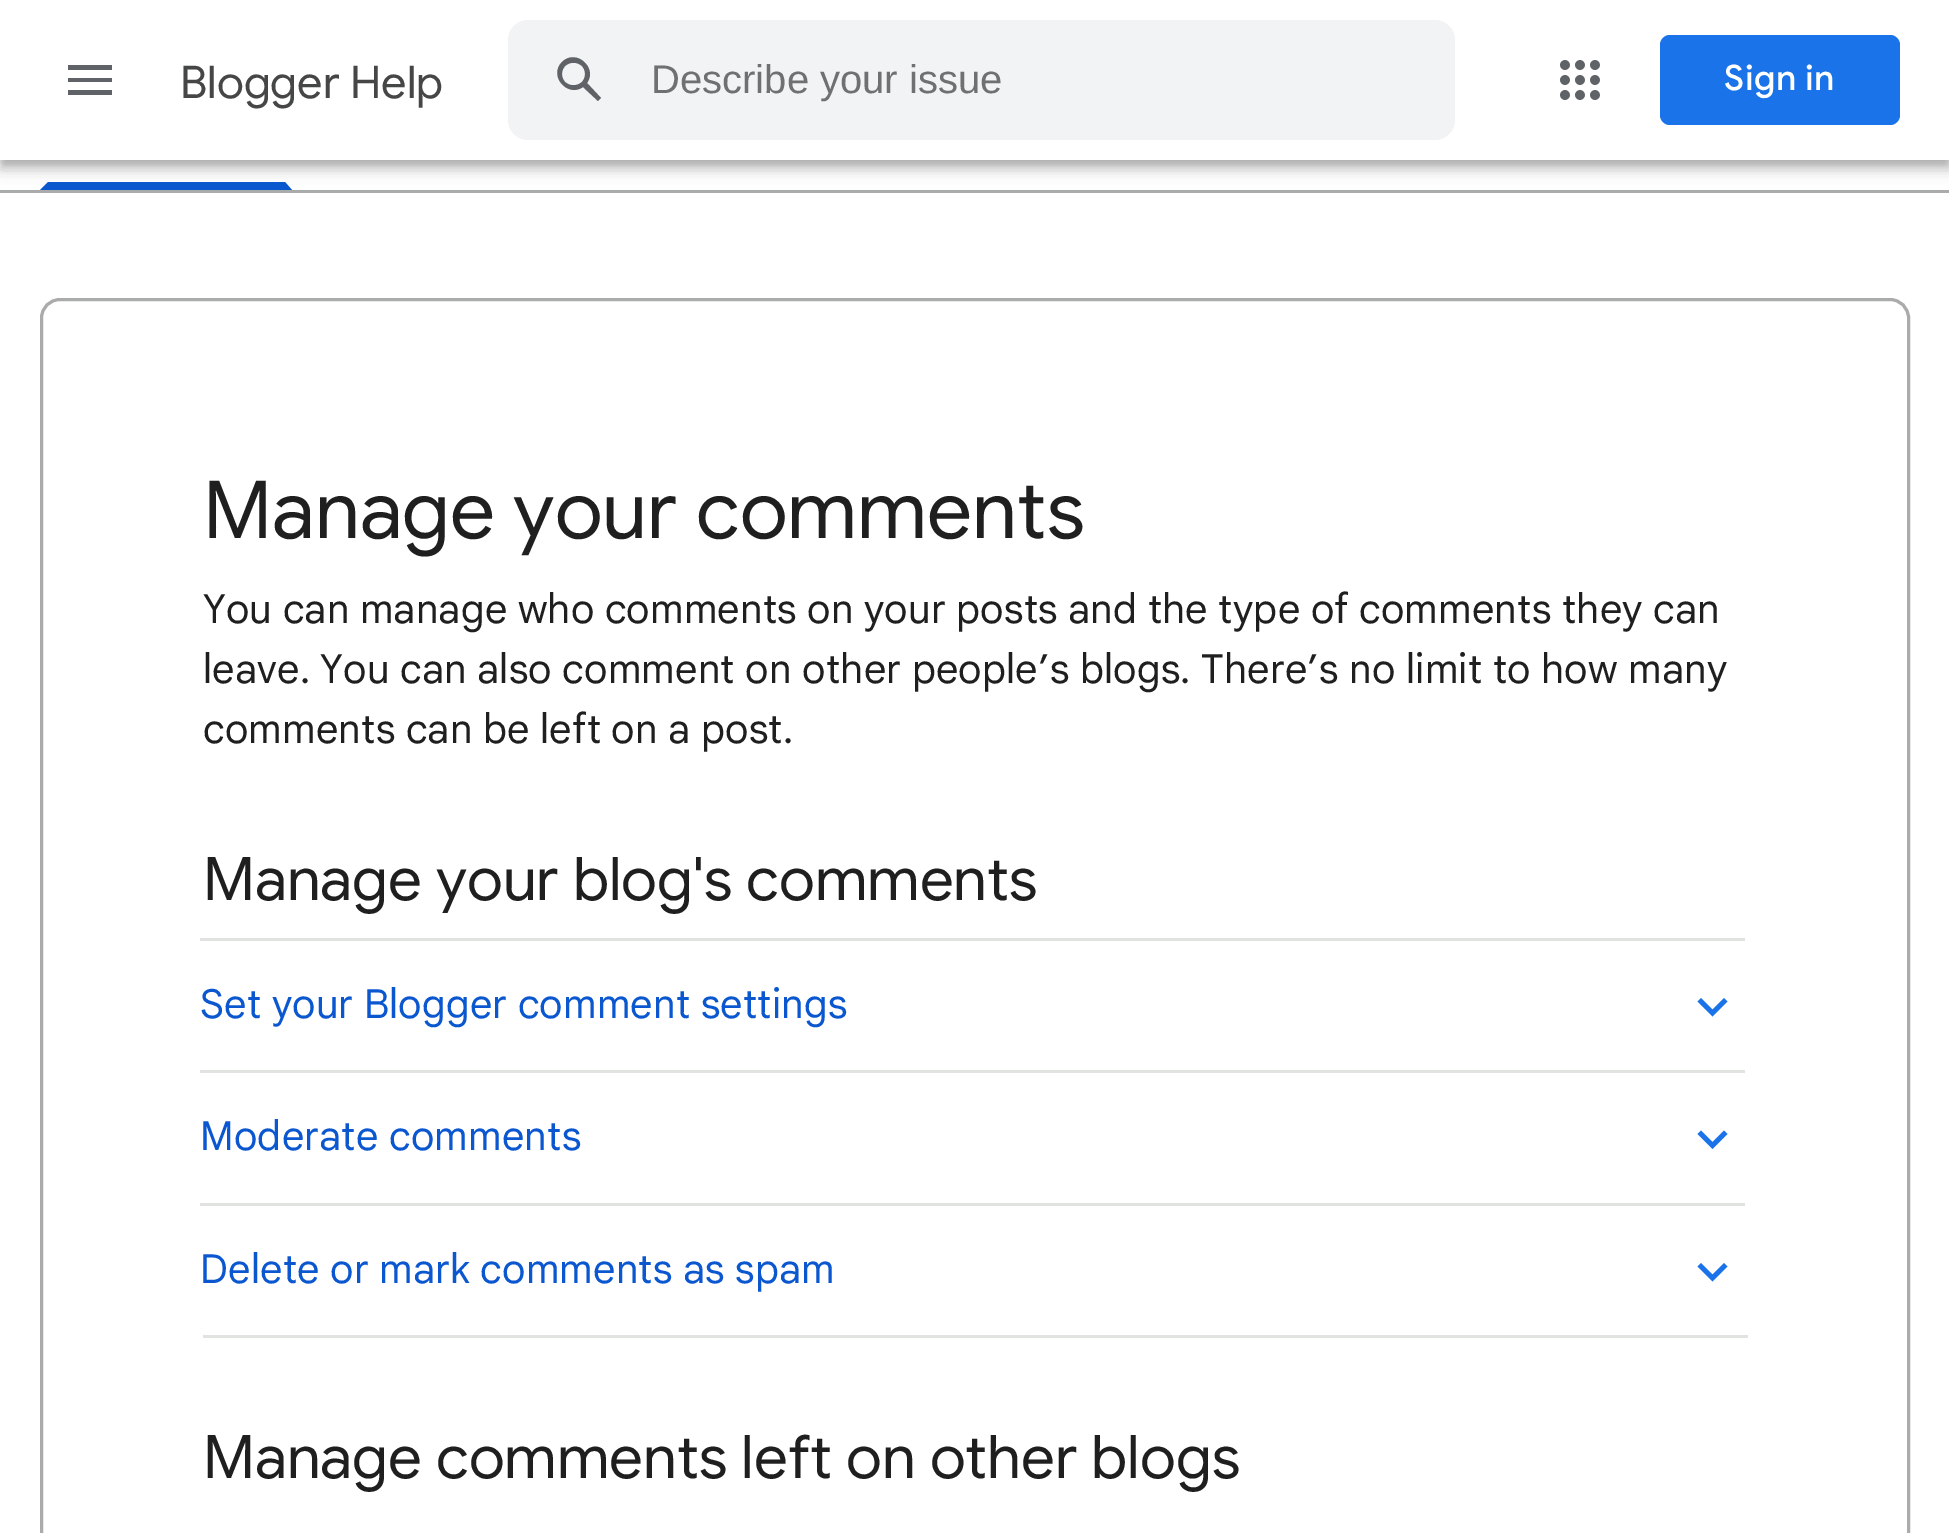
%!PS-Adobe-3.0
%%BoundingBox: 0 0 1949 1533
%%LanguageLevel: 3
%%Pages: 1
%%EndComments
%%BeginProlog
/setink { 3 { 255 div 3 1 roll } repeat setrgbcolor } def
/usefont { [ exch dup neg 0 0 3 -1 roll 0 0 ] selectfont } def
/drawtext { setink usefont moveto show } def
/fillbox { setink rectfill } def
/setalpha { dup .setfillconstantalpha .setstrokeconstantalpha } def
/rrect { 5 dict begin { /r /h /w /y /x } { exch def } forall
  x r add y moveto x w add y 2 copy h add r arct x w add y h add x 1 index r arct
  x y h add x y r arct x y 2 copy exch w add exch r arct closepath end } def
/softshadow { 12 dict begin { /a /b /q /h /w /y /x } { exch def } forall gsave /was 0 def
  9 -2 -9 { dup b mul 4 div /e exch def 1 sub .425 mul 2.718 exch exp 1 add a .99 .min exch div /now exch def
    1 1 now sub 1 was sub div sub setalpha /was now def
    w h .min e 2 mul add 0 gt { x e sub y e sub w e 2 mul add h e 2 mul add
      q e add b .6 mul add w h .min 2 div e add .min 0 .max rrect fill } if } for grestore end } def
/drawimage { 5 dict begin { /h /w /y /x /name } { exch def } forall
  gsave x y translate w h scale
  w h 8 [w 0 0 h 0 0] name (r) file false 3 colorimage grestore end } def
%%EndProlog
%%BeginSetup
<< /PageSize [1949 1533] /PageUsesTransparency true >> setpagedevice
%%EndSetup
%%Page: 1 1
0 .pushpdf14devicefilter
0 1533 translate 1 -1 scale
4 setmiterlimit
0 0 1949 1533 255 255 255 fillbox
0 0 0 setink
3 8 1945 155 0 5 0.2 softshadow
0 190 1949 3 169 172 170 fillbox
11 87 208 setink
292 190 moveto 40 190 lineto 48 182 lineto 285 182 lineto closepath fill
0 0 0 setink
0 3 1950 160 0 12.5 0.12 softshadow
0 10 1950 160 0 6 0.14 softshadow
0 0 1949 160 255 255 255 fillbox
95 99 104 setink
68 95 moveto 112 95 lineto 112 90 lineto 68 90 lineto closepath 68 82 moveto 112 82 lineto 112 78 lineto 68 78 lineto closepath 68 65 moveto 68 70 lineto 112 70 lineto 112 65 lineto closepath fill
(Blogger Help) 180 98 /GoogleSans-Regular 45 68 71 70 drawtext
241 243 244 setink
508 20 947 120 20 rrect fill
95 99 104 setink
601 98 moveto 587 83 lineto 598 68 576 48 562 62 curveto 548 76 568 98 583 87 curveto 598 101 lineto closepath 562 74 moveto 562 59 585 59 585 74 curveto 585 89 562 89 562 74 curveto closepath fill
(Describe your issue) 651 93 /LiberationSans-Regular 40 111 112 112 drawtext
(assets/img1.rgb) 1560 60 40 40 drawimage
26 115 232 setink
1660 35 240 90 10 rrect fill
/GoogleSans-Medium 35 usefont
255 255 255 setink
1724 90 moveto 0.5 0 (Sign in) ashow
169 172 170 setink
3 setlinewidth
41.5 299.5 1867 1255 18.5 rrect stroke
(Manage your comments) 203 538 /GoogleSans-Regular 80 31 31 31 drawtext
/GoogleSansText-Regular 40 usefont
203 623 moveto 0.2 0 (You can manage who comments on your posts and the type of comments they can) ashow
203 683 moveto 0.2 0 (leave. You can also comment on other people’s blogs. There’s no limit to how many) ashow
203 743 moveto 0.2 0 (comments can be left on a post.) ashow
(Manage your blog's comments) 203 900 /GoogleSans-Regular 60 31 31 31 drawtext
200 938 1545 3 225 227 225 fillbox
/GoogleSansText-Regular 40 usefont
11 87 208 setink
200 1018 moveto 0.2 0 (Set your Blogger comment settings) ashow
26 115 232 setink
1701 998 moveto 1712.5 1009.5 lineto 1724 998 lineto 1727.5 1001.5 lineto 1712.5 1016.5 lineto 1697.5 1001.5 lineto closepath fill
200 1070 1545 3 225 227 225 fillbox
11 87 208 setink
200 1150 moveto 0.2 0 (Moderate comments) ashow
26 115 232 setink
1701 1130.5 moveto 1712.5 1142 lineto 1724 1130.5 lineto 1727.5 1134 lineto 1712.5 1149 lineto 1697.5 1134 lineto closepath fill
203 1335 1545 3 225 227 225 fillbox
200 1203 1545 3 225 227 225 fillbox
11 87 208 setink
200 1283 moveto 0.2 0 (Delete or mark comments as spam) ashow
26 115 232 setink
1701 1263 moveto 1712.5 1274.5 lineto 1724 1263 lineto 1727.5 1266.5 lineto 1712.5 1281.5 lineto 1697.5 1266.5 lineto closepath fill
(Manage comments left on other blogs) 203 1478 /GoogleSans-Regular 60 31 31 31 drawtext
.poppdf14devicefilter showpage
%%EOF
